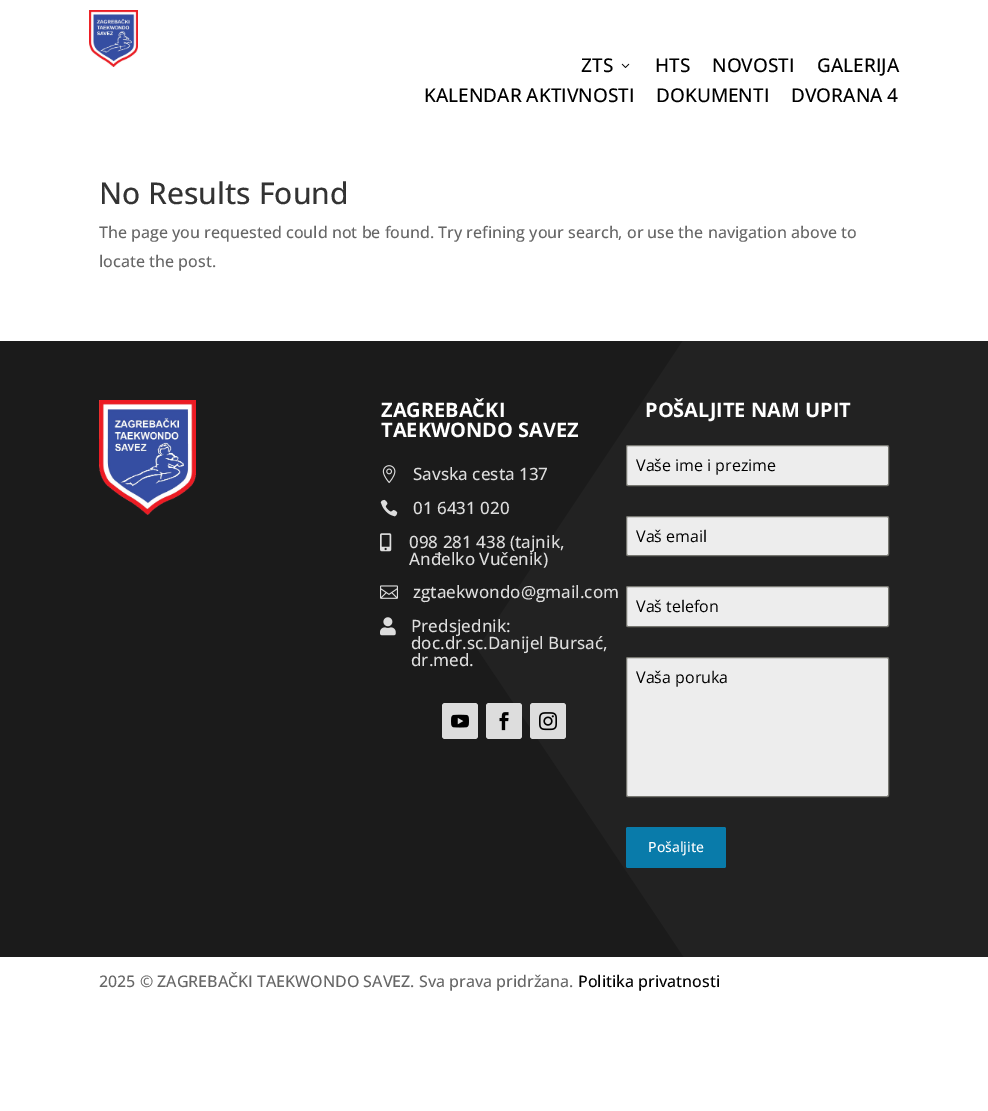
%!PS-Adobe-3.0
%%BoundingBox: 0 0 988 1111
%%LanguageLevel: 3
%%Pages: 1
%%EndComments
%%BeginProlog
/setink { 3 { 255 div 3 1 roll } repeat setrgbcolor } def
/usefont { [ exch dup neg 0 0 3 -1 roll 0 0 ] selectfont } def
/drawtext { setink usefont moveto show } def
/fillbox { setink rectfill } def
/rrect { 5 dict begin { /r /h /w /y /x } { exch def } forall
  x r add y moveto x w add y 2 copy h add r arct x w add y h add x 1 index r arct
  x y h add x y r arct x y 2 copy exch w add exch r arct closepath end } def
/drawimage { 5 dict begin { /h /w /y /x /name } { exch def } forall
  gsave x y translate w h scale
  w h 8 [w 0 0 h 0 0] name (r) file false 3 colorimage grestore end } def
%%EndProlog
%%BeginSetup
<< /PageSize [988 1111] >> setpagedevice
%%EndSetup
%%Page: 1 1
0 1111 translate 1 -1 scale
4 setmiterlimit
0 0 988 1111 255 255 255 fillbox
(assets/img1.rgb) 89 10 49 57 drawimage
(ZTS) 581 72 /OpenSans-Medium 19 0 0 0 drawtext
(assets/img2.rgb) 621 63 9 5 drawimage
(HTS) 655 72 /OpenSans-Medium 19 0 0 0 drawtext
(NOVOSTI) 712 72 /OpenSans-Medium 19 0 0 0 drawtext
(GALERIJA) 817 72 /OpenSans-Medium 19 0 0 0 drawtext
(KALENDAR AKTIVNOSTI) 424 102 /OpenSans-Medium 19 0 0 0 drawtext
(DOKUMENTI) 656 102 /OpenSans-Medium 19 0 0 0 drawtext
(DVORANA 4) 791 102 /OpenSans-Medium 19 0 0 0 drawtext
(No Results Found) 99 204 /OpenSans-Medium 30 51 51 51 drawtext
(The page you requested could not be found. Try refining your search, or use the navigation above to) 99 238 /OpenSans-Medium 16 102 102 102 drawtext
(locate the post.) 99 267 /OpenSans-Medium 16 102 102 102 drawtext
477 341 511 616 34 34 34 fillbox
gsave
0 341 988 616 rectclip
27 27 27 setink
683 340 moveto -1 340 lineto -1 958 lineto 684 958 lineto 477 649 lineto closepath fill
grestore
(assets/img3.rgb) 99 400 97 115 drawimage
(ZAGREBAČKI) 381 417 /OpenSans-Bold 20 255 255 255 drawtext
(TAEKWONDO SAVEZ) 381 437 /OpenSans-Bold 20 255 255 255 drawtext
(assets/img4.rgb) 382 465 14 19 drawimage
(Savska cesta 137) 413 480 /OpenSans-Medium 17 221 221 221 drawtext
(assets/img5.rgb) 380 499 18 18 drawimage
(01 6431 020) 413 514 /OpenSans-Medium 17 221 221 221 drawtext
(assets/img6.rgb) 380 533 12 19 drawimage
(098 281 438 \(tajnik,) 409 548 /OpenSans-Medium 17 221 221 221 drawtext
(Anđelko Vučenik\)) 409 565 /OpenSans-Medium 17 221 221 221 drawtext
(assets/img7.rgb) 380 585 18 14 drawimage
(zgtaekwondo@gmail.com) 413 598 /OpenSans-Medium 17 221 221 221 drawtext
(assets/img8.rgb) 380 617 16 19 drawimage
(Predsjednik:) 411 632 /OpenSans-Medium 17 221 221 221 drawtext
(doc.dr.sc.Danijel Bursać,) 411 649 /OpenSans-Medium 17 221 221 221 drawtext
(dr.med.) 411 666 /OpenSans-Medium 17 221 221 221 drawtext
442 703 36 36 3 rrect fill
(assets/img9.rgb) 451 714 18 14 drawimage
486 703 36 36 3 rrect fill
(assets/img10.rgb) 499 712 10 19 drawimage
530 703 36 36 3 rrect fill
(assets/img11.rgb) 539 712 18 19 drawimage
(POŠALJITE NAM UPIT) 645 417 /OpenSans-Bold 20 255 255 255 drawtext
237 237 237 setink
626.5 445.5 262 40 1.5 rrect gsave fill grestore
119 119 113 setink
stroke
(Vaše ime i prezime) 636 471 /OpenSans-Regular 16 0 0 0 drawtext
237 237 237 setink
626.5 516.5 262 39 1.5 rrect gsave fill grestore
119 119 113 setink
stroke
(Vaš email) 636 542 /OpenSans-Regular 16 0 0 0 drawtext
237 237 237 setink
626.5 586.5 262 40 1.5 rrect gsave fill grestore
119 119 113 setink
stroke
(Vaš telefon) 636 612 /OpenSans-Regular 16 0 0 0 drawtext
237 237 237 setink
626.5 657.5 262 139 1.5 rrect gsave fill grestore
119 119 113 setink
stroke
(Vaša poruka) 636 683 /OpenSans-Regular 16 0 0 0 drawtext
9 123 170 setink
626 827 100 41 2 rrect fill
(Pošaljite) 648 852 /OpenSans-Medium 14 255 255 255 drawtext
(2025 © ZAGREBAČKI TAEKWONDO SAVEZ. Sva prava pridržana.) 99 987 /OpenSans-Medium 16 102 102 102 drawtext
(Politika privatnosti) 578 987 /OpenSans-Medium 16 0 0 0 drawtext
showpage
%%EOF
